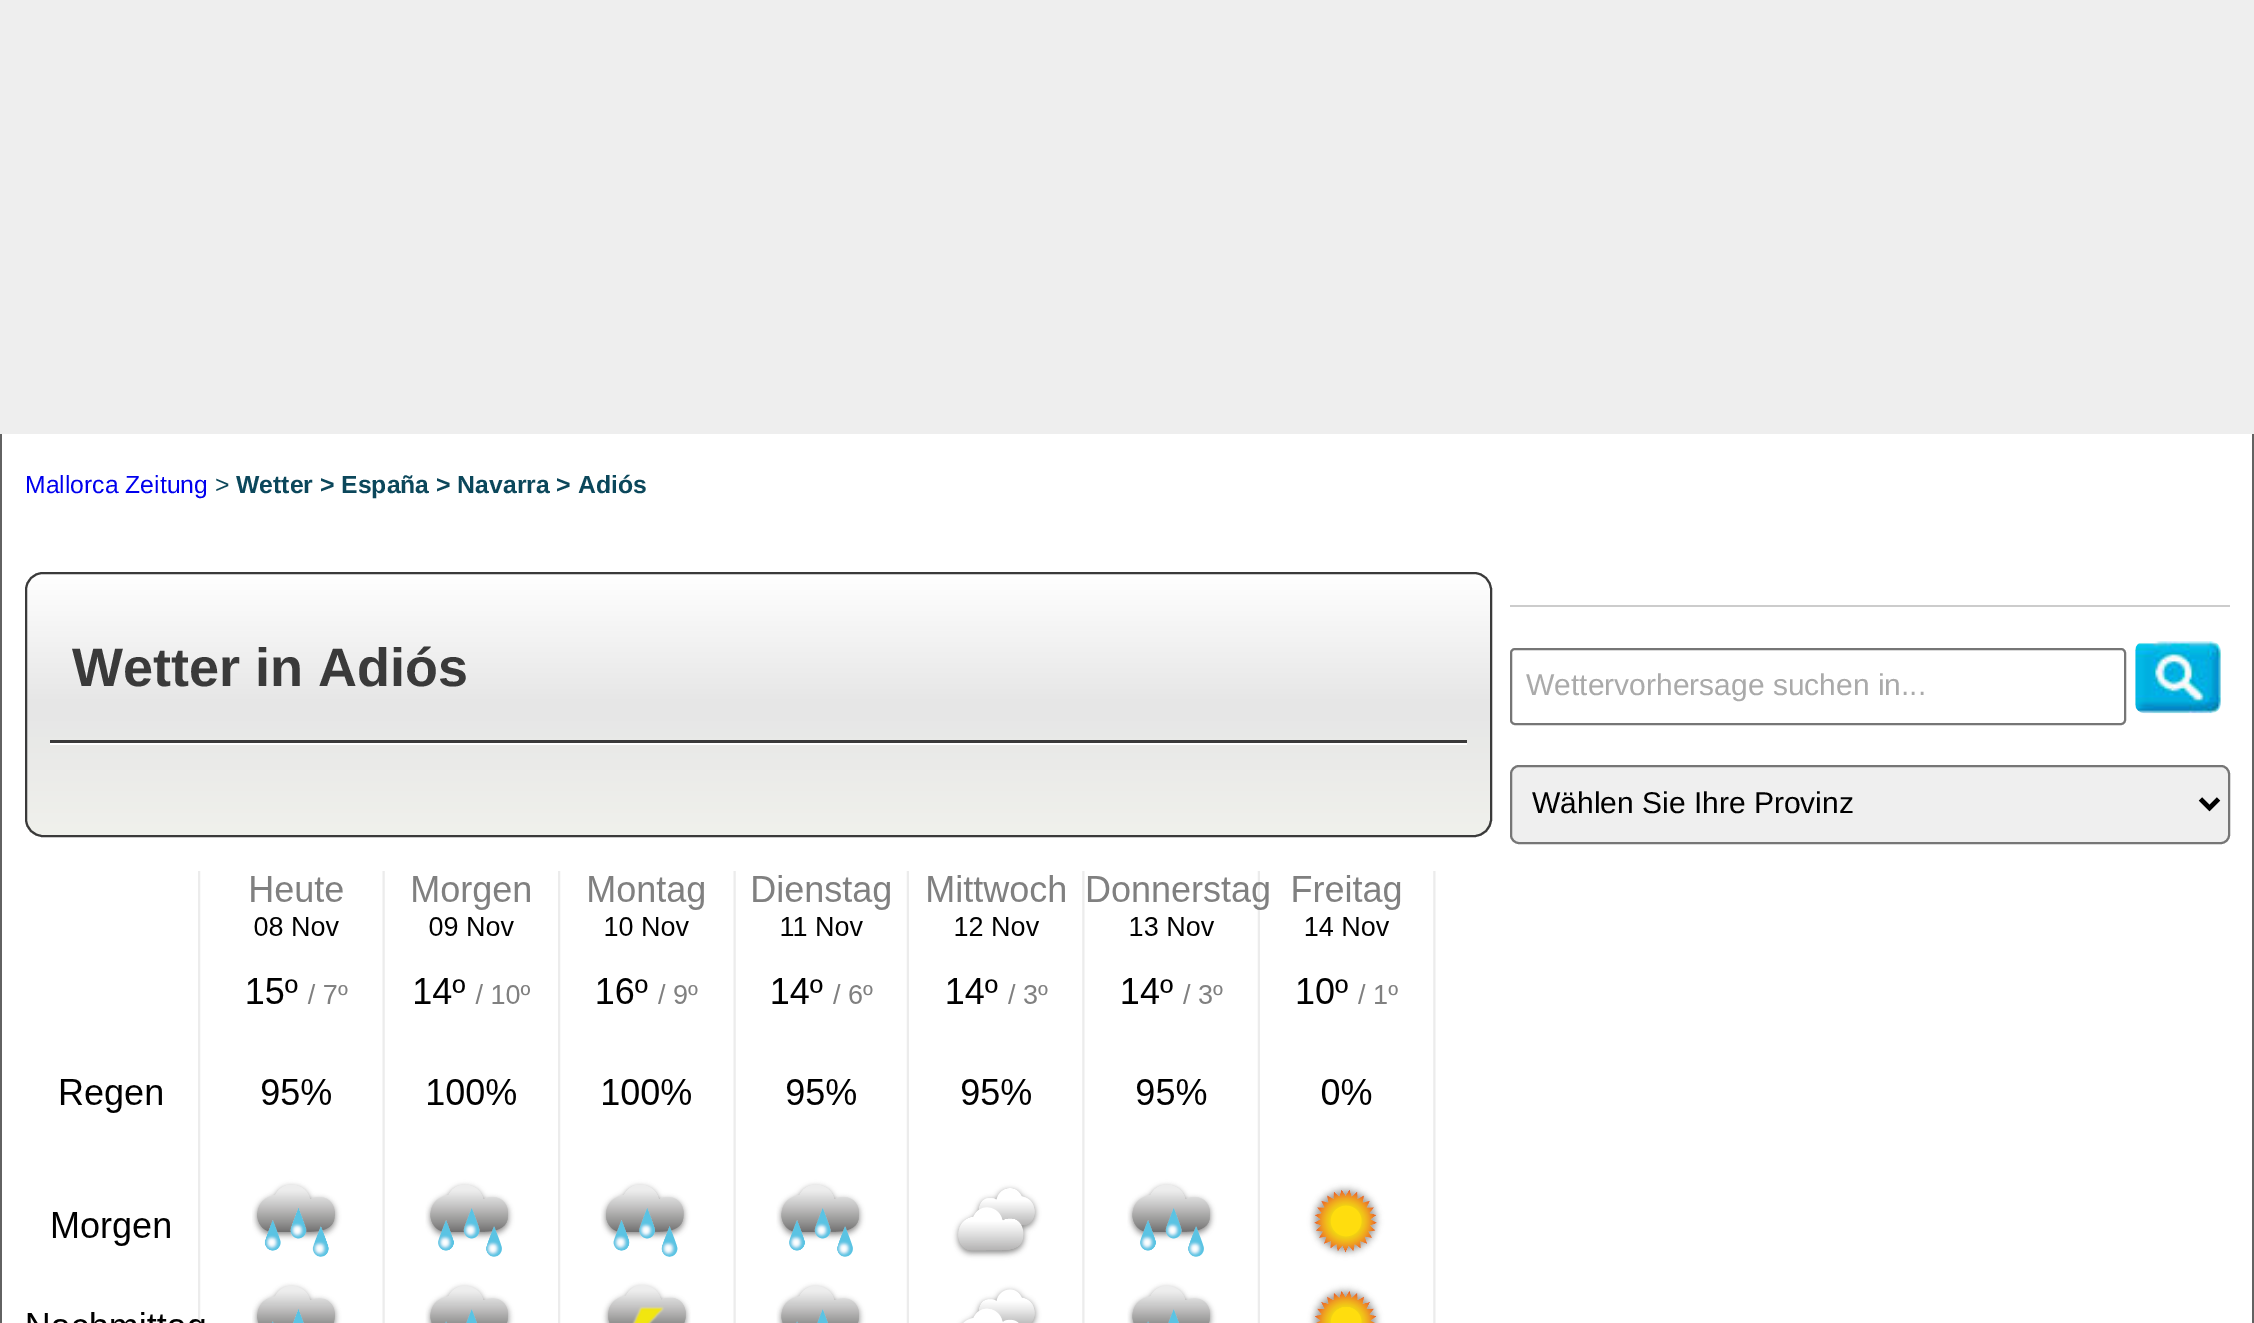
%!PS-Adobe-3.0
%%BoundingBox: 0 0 2254 1323
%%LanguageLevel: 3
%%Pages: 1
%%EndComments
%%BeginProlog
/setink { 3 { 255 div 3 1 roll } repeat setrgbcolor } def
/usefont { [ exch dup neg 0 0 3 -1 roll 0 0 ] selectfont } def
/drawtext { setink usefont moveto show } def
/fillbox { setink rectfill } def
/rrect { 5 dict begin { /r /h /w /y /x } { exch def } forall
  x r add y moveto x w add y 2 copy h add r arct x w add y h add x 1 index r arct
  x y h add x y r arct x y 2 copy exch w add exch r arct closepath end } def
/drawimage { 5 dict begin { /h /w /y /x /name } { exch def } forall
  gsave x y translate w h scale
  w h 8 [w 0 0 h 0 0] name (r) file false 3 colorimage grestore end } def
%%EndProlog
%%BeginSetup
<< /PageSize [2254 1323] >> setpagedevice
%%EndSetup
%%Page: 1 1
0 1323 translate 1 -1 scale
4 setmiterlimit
0 0 2254 1323 238 238 238 fillbox
2 434 2250 889 255 255 255 fillbox
2252 434 2 889 98 98 98 fillbox
0 434 2 889 98 98 98 fillbox
(Mallorca Zeitung) 25 493 /LiberationSans-Regular 24.75 0 0 238 drawtext
(>) 215 493 /LiberationSans-Regular 24.75 11 71 91 drawtext
(Wetter > España > Navarra > Adiós) 236 493 /LiberationSans-Bold 24.75 11 71 91 drawtext
gsave
25 572 1467 265 18 rrect clip newpath
gsave 25 574 moveto 1492 574 lineto 1492 835 lineto 25 835 lineto closepath clip newpath
<< /ShadingType 2 /ColorSpace /DeviceRGB /Coords [758 574 758 835] /Extend [true true] /Function << /FunctionType 3 /Domain [0 1] /Functions [<< /FunctionType 2 /Domain [0 1] /C0 [1 1 1] /C1 [0.902 0.902 0.902] /N 1 >> << /FunctionType 2 /Domain [0 1] /C0 [0.902 0.902 0.902] /C1 [0.941 0.945 0.925] /N 1 >>] /Bounds [0.51] /Encode [0 1 0 1] >> >> shfill grestore
grestore
58 58 58 setink
2 setlinewidth
26 573 1465 263 17 rrect stroke
(Wetter in Adiós) 72 686 /LiberationSans-Bold 54 58 58 58 drawtext
50 740 1417 3 58 58 58 fillbox
50 743 1417 2 255 255 255 fillbox
1510 605 720 2 204 204 204 fillbox
118 118 118 setink
1511 649 614 75 4 rrect stroke
(Wettervorhersage suchen in...) 1526 695 /LiberationSans-Regular 30 170 170 170 drawtext
(assets/img1.rgb) 2135 641 86 73 drawimage
239 239 239 setink
1511 766 718 77 8 rrect gsave fill grestore
118 118 118 setink
stroke
0 0 0 setink
4.5 setlinewidth
2200.5 799 moveto 2209.5 808 lineto 2218.5 799 lineto stroke
(Wählen Sie Ihre Provinz) 1532 813 /LiberationSans-Regular 30 0 0 0 drawtext
(assets/img2.rgb) 27 871 1409 452 drawimage
showpage
%%EOF
